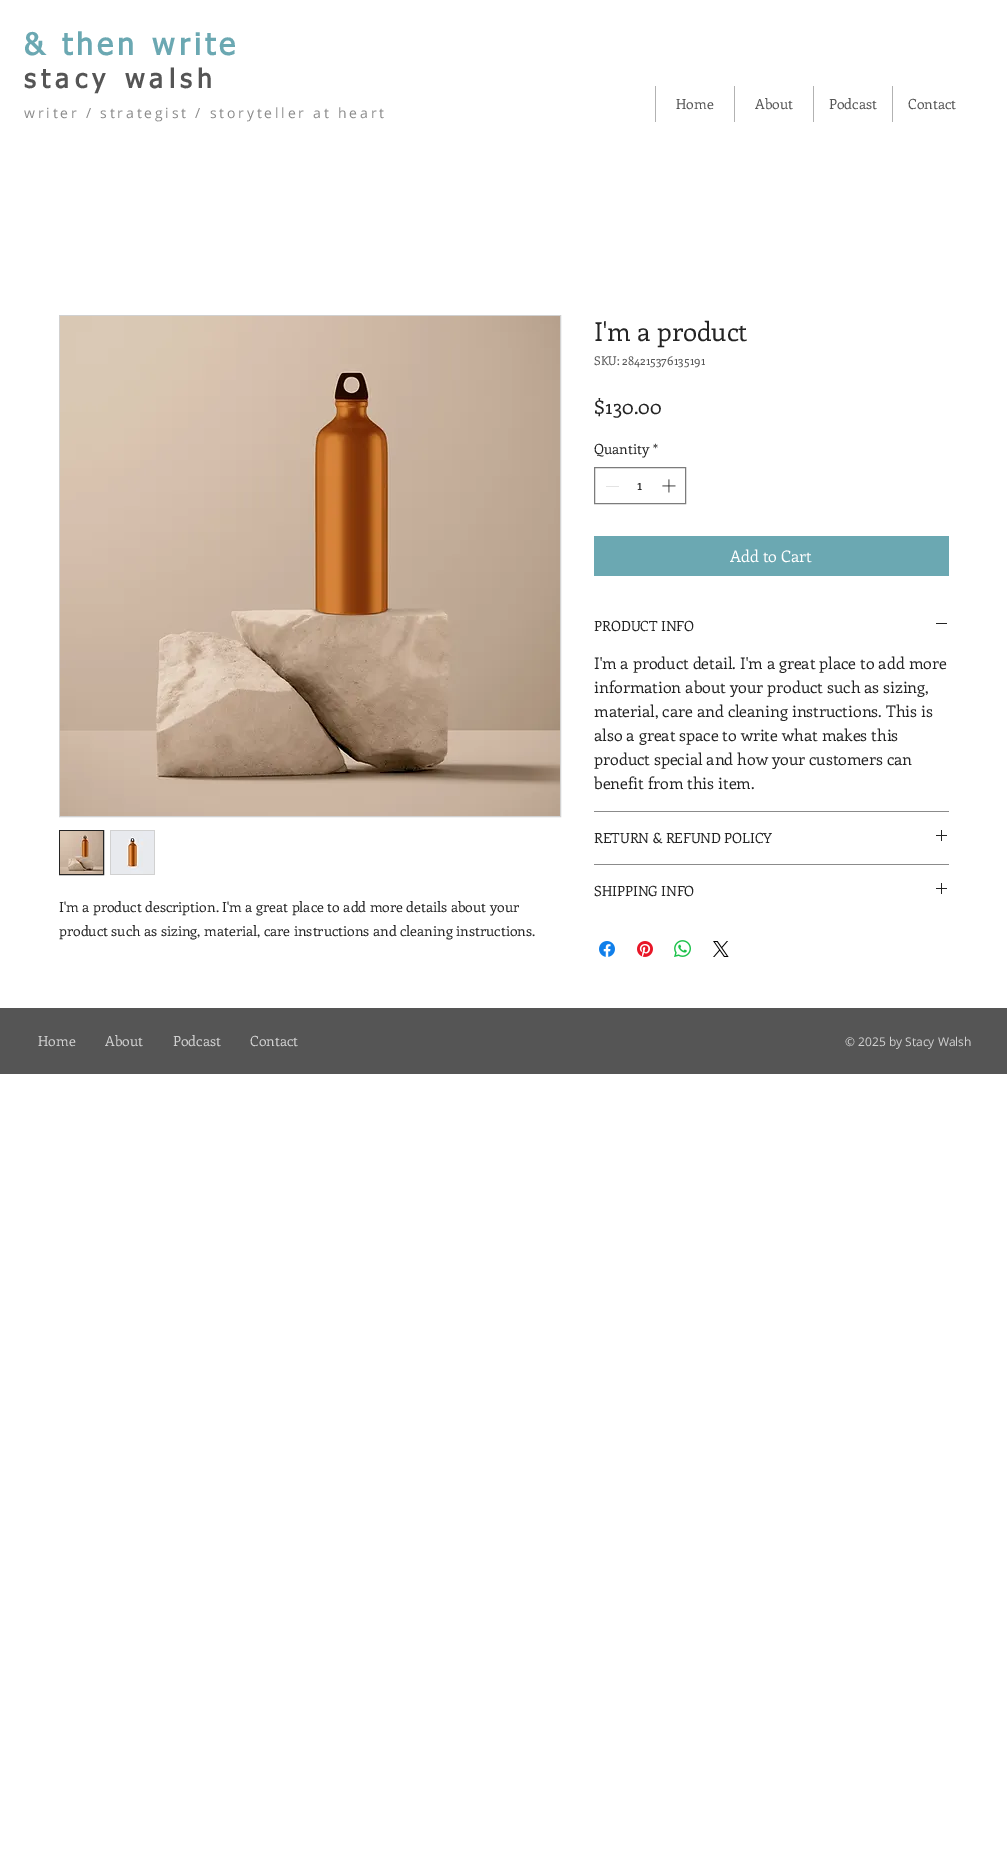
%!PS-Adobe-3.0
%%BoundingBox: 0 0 1007 1870
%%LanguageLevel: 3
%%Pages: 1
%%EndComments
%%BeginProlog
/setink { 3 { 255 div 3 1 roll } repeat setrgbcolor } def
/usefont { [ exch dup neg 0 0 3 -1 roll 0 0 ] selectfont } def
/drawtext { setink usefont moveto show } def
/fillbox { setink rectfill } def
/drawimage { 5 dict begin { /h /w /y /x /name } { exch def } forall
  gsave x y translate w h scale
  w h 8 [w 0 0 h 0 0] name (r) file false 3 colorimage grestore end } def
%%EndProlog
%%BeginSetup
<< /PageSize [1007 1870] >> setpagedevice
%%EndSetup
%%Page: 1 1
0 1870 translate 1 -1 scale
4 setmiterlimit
0 0 1007 1870 255 255 255 fillbox
/tahoma-Bold 30 usefont
107 168 178 setink
24 55 moveto 4.25 0 (& then write) ashow
/tahoma-Bold 26 usefont
85 85 85 setink
24 88 moveto 5.6 0 (stacy walsh) ashow
655 86 1 36 178 178 178 fillbox
(Home) 676 109 /Enriqueta-Regular 14 85 85 85 drawtext
734 86 1 36 178 178 178 fillbox
(About) 755 109 /Enriqueta-Regular 14 85 85 85 drawtext
813 86 1 36 178 178 178 fillbox
(Podcast) 829 109 /Enriqueta-Regular 14 85 85 85 drawtext
892 86 1 36 178 178 178 fillbox
(Contact) 908 109 /Enriqueta-Regular 14 85 85 85 drawtext
/OpenSans-Regular 14 usefont
139 139 139 setink
24 118 moveto 2.8 0 (writer / strategist / storyteller at heart) ashow
(I'm a product) 594 341 /Enriqueta-Regular 26 36 36 36 drawtext
(SKU: 284215376135191) 594 365 /Enriqueta-Regular 12 85 85 85 drawtext
($130.00) 594 414 /Enriqueta-Regular 20 36 36 36 drawtext
(Quantity) 594 454 /Enriqueta-Regular 14 36 36 36 drawtext
(*) 653 454 /Enriqueta-Regular 14 36 36 36 drawtext
124 124 124 setink
594.5 467.5 91 36 rectstroke
606 486 13 1 227 227 227 fillbox
(1) 637 490 /Enriqueta-Regular 14 36 36 36 drawtext
(assets/img1.rgb) 662 479 14 14 drawimage
594 536 355 40 107 168 178 fillbox
(Add to Cart) 730 562 /Enriqueta-Regular 16 255 255 255 drawtext
594 811 355 1 139 139 139 fillbox
(PRODUCT INFO) 594 631 /Enriqueta-Regular 14 36 36 36 drawtext
936 623 11 1 36 36 36 fillbox
(I'm a product detail. I'm a great place to add more) 594 669 /Enriqueta-Regular 16 36 36 36 drawtext
(information about your product such as sizing,) 594 693 /Enriqueta-Regular 16 36 36 36 drawtext
(material, care and cleaning instructions. This is) 594 717 /Enriqueta-Regular 16 36 36 36 drawtext
(also a great space to write what makes this) 594 741 /Enriqueta-Regular 16 36 36 36 drawtext
(product special and how your customers can) 594 765 /Enriqueta-Regular 16 36 36 36 drawtext
(benefit from this item.) 594 789 /Enriqueta-Regular 16 36 36 36 drawtext
594 864 355 1 139 139 139 fillbox
(RETURN & REFUND POLICY) 594 843 /Enriqueta-Regular 14 36 36 36 drawtext
(assets/img2.rgb) 936 830 11 11 drawimage
(SHIPPING INFO) 594 896 /Enriqueta-Regular 14 36 36 36 drawtext
(assets/img2.rgb) 936 883 11 11 drawimage
(assets/img3.rgb) 599 941 16 16 drawimage
(assets/img4.rgb) 637 941 16 16 drawimage
(assets/img5.rgb) 674 940 17 17 drawimage
(assets/img6.rgb) 713 941 16 16 drawimage
209 209 209 setink
59.5 315.5 501 501 rectstroke
(assets/img7.rgb) 60 316 500 500 drawimage
36 36 36 setink
59.5 830.5 44 44 rectstroke
(assets/img8.rgb) 60 831 43 43 drawimage
110 830 45 45 209 209 209 fillbox
(assets/img9.rgb) 111 831 43 43 drawimage
(I'm a product description. I'm a great place to add more details about your) 59 912 /Enriqueta-Regular 14 36 36 36 drawtext
(product such as sizing, material, care instructions and cleaning instructions.) 59 936 /Enriqueta-Regular 14 36 36 36 drawtext
0 1008 1007 66 85 85 85 fillbox
(Home) 38 1046 /Enriqueta-Regular 14 209 209 209 drawtext
(About) 105 1046 /Enriqueta-Regular 14 209 209 209 drawtext
(Podcast) 173 1046 /Enriqueta-Regular 14 209 209 209 drawtext
(Contact) 250 1046 /Enriqueta-Regular 14 209 209 209 drawtext
(© 2025 by Stacy Walsh) 845 1046 /OpenSans-Regular 12 209 209 209 drawtext
showpage
%%EOF
